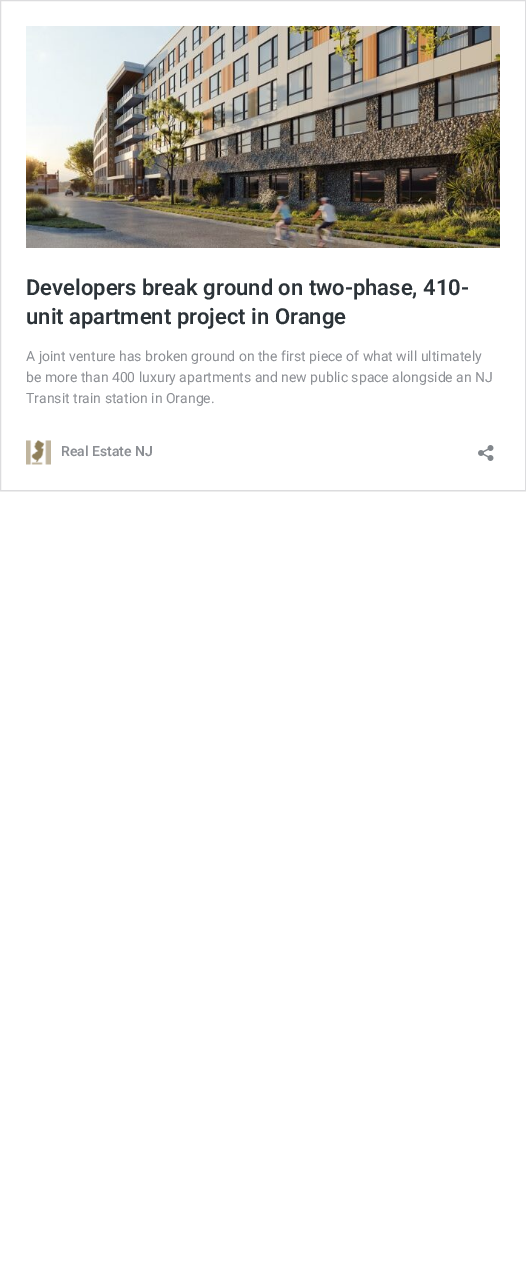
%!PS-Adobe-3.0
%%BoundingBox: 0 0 526 1278
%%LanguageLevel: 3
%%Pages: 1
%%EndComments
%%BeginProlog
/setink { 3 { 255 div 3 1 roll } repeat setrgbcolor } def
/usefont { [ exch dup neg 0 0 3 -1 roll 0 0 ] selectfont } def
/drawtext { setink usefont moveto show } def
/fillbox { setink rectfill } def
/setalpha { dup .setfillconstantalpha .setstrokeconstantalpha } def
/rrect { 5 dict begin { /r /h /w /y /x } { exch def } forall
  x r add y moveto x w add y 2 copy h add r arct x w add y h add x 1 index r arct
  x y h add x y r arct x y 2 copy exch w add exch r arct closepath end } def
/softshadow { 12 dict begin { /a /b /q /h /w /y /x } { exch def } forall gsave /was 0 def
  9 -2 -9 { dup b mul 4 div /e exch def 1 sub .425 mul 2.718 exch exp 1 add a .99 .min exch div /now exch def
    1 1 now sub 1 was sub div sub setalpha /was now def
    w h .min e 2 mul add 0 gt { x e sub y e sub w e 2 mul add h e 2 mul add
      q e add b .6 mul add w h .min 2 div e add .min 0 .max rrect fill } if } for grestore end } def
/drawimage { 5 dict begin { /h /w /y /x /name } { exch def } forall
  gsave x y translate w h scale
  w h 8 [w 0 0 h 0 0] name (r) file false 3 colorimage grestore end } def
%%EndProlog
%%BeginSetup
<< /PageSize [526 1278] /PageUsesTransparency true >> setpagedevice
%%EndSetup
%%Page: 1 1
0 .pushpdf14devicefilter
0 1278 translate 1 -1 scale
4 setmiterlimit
0 0 526 1278 255 255 255 fillbox
gsave
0 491 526 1 rectclip
0 0 0 setink
0 1 526 491 0 0.5 0.05 softshadow
grestore
220 220 222 setink
0.5 0.5 525 490 rectstroke
(assets/img1.rgb) 26 26 474 222 drawimage
(Developers break ground on two-phase, 410-) 26 295 /Roboto-SemiBold 22 44 51 56 drawtext
(unit apartment project in Orange) 26 324 /Roboto-SemiBold 22 44 51 56 drawtext
(A joint venture has broken ground on the first piece of what will ultimately) 26 361 /Roboto-Regular 14 140 143 148 drawtext
(be more than 400 luxury apartments and new public space alongside an NJ) 26 382 /Roboto-Regular 14 140 143 148 drawtext
(Transit train station in Orange.) 26 403 /Roboto-Regular 14 140 143 148 drawtext
(assets/img2.rgb) 26 440 25 25 drawimage
(Real Estate NJ) 61 456 /Roboto-SemiBold 14 140 143 148 drawtext
(assets/img3.rgb) 478 445 16 16 drawimage
.poppdf14devicefilter showpage
%%EOF
